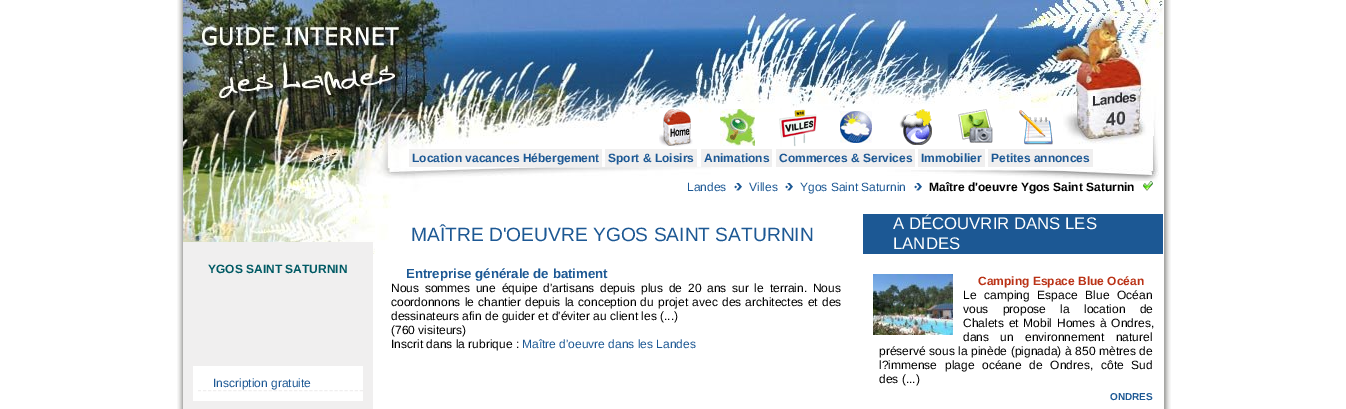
%!PS-Adobe-3.0
%%BoundingBox: 0 0 1346 409
%%LanguageLevel: 3
%%Pages: 1
%%EndComments
%%BeginProlog
/setink { 3 { 255 div 3 1 roll } repeat setrgbcolor } def
/usefont { [ exch dup neg 0 0 3 -1 roll 0 0 ] selectfont } def
/drawtext { setink usefont moveto show } def
/fillbox { setink rectfill } def
/drawimage { 5 dict begin { /h /w /y /x /name } { exch def } forall
  gsave x y translate w h scale
  w h 8 [w 0 0 h 0 0] name (r) file false 3 colorimage grestore end } def
%%EndProlog
%%BeginSetup
<< /PageSize [1346 409] >> setpagedevice
%%EndSetup
%%Page: 1 1
0 409 translate 1 -1 scale
4 setmiterlimit
0 0 1346 409 255 255 255 fillbox
(assets/img1.rgb) 177 0 994 409 drawimage
(assets/img2.rgb) 183 0 980 254 drawimage
(assets/img3.rgb) 659 108 40 39 drawimage
(assets/img4.rgb) 720 109 35 37 drawimage
(assets/img5.rgb) 779 108 38 39 drawimage
(assets/img6.rgb) 840 108 32 35 drawimage
(assets/img7.rgb) 899 109 33 36 drawimage
(assets/img8.rgb) 958 109 35 34 drawimage
(assets/img9.rgb) 1019 108 34 37 drawimage
409 149 193 18 240 239 239 fillbox
(Location vacances Hébergement) 412 162 /LiberationSans-Bold 12 28 88 148 drawtext
605 149 92 18 240 239 239 fillbox
(Sport & Loisirs) 608 162 /LiberationSans-Bold 12 28 88 148 drawtext
701 149 71 18 240 239 239 fillbox
(Animations) 704 162 /LiberationSans-Bold 12 28 88 148 drawtext
776 149 139 18 240 239 239 fillbox
(Commerces & Services) 779 162 /LiberationSans-Bold 12 28 88 148 drawtext
918 149 67 18 240 239 239 fillbox
(Immobilier) 921 162 /LiberationSans-Bold 12 28 88 148 drawtext
988 149 105 18 240 239 239 fillbox
(Petites annonces) 991 162 /LiberationSans-Bold 12 28 88 148 drawtext
(Landes) 687 191 /LiberationSans-Regular 12 28 88 148 drawtext
(assets/img10.rgb) 734 183 8 8 drawimage
(Villes) 749 191 /LiberationSans-Regular 12 28 88 148 drawtext
(assets/img10.rgb) 785 183 8 8 drawimage
(Ygos Saint Saturnin) 800 191 /LiberationSans-Regular 12 28 88 148 drawtext
(assets/img10.rgb) 914 183 8 8 drawimage
(Maître d'oeuvre Ygos Saint Saturnin) 929 191 /LiberationSans-Bold 12 0 0 0 drawtext
(assets/img11.rgb) 1138 181 15 10 drawimage
183 242 190 167 240 239 239 fillbox
(YGOS SAINT SATURNIN) 208 273 /LiberationSans-Bold 12 0 90 100 drawtext
193 366 170 35 255 255 255 fillbox
240 239 239 setink
[3 2.06] 0 setdash
198 390.5 moveto 363 390.5 lineto stroke
(Inscription gratuite) 213 387 /LiberationSans-Regular 12 28 88 148 drawtext
(MAÎTRE D'OEUVRE YGOS SAINT SATURNIN) 411 241 /LiberationSans-Regular 19.2 28 88 148 drawtext
(Entreprise générale de batiment) 406 278 /LiberationSans-Bold 13.25 28 88 148 drawtext
/LiberationSans-Regular 12 usefont
0 0 0 setink
391 292 moveto 2.4 0 32 (Nous sommes une équipe d'artisans depuis plus de 20 ans sur le terrain. Nous) widthshow
391 306 moveto 0.9 0 32 (coordonnons le chantier depuis la conception du projet avec des architectes et des) widthshow
(dessinateurs afin de guider et d'éviter au client les \(...\)) 391 320 /LiberationSans-Regular 12 0 0 0 drawtext
(\(760 visiteurs\)) 391 334 /LiberationSans-Regular 12 0 0 0 drawtext
(Inscrit dans la rubrique :) 391 348 /LiberationSans-Regular 12 0 0 0 drawtext
(Maître d'oeuvre dans les Landes) 522 348 /LiberationSans-Regular 12 28 88 148 drawtext
863 214 300 40 28 88 148 fillbox
(A DÉCOUVRIR DANS LES) 893 229 /LiberationSans-Regular 16.75 255 255 255 drawtext
(LANDES) 893 249 /LiberationSans-Regular 16.75 255 255 255 drawtext
(assets/img12.rgb) 873 274 80 61 drawimage
(Camping Espace Blue Océan) 978 285 /LiberationSans-Bold 12 186 50 22 drawtext
/LiberationSans-Regular 12 usefont
0 0 0 setink
963 299 moveto 4.5 0 32 (Le camping Espace Blue Océan) widthshow
963 313 moveto 11 0 32 (vous propose la location de) widthshow
963 327 moveto 1.5 0 32 (Chalets et Mobil Homes à Ondres,) widthshow
963 341 moveto 8 0 32 (dans un environnement naturel) widthshow
879 355 moveto 0.25 0 32 (préservé sous la pinède \(pignada\) à 850 mètres de) widthshow
879 369 moveto 4.5 0 32 (l?immense plage océane de Ondres, côte Sud) widthshow
(des \(...\)) 879 383 /LiberationSans-Regular 12 0 0 0 drawtext
(ONDRES) 1110 400 /LiberationSans-Bold 10 28 88 148 drawtext
showpage
%%EOF
